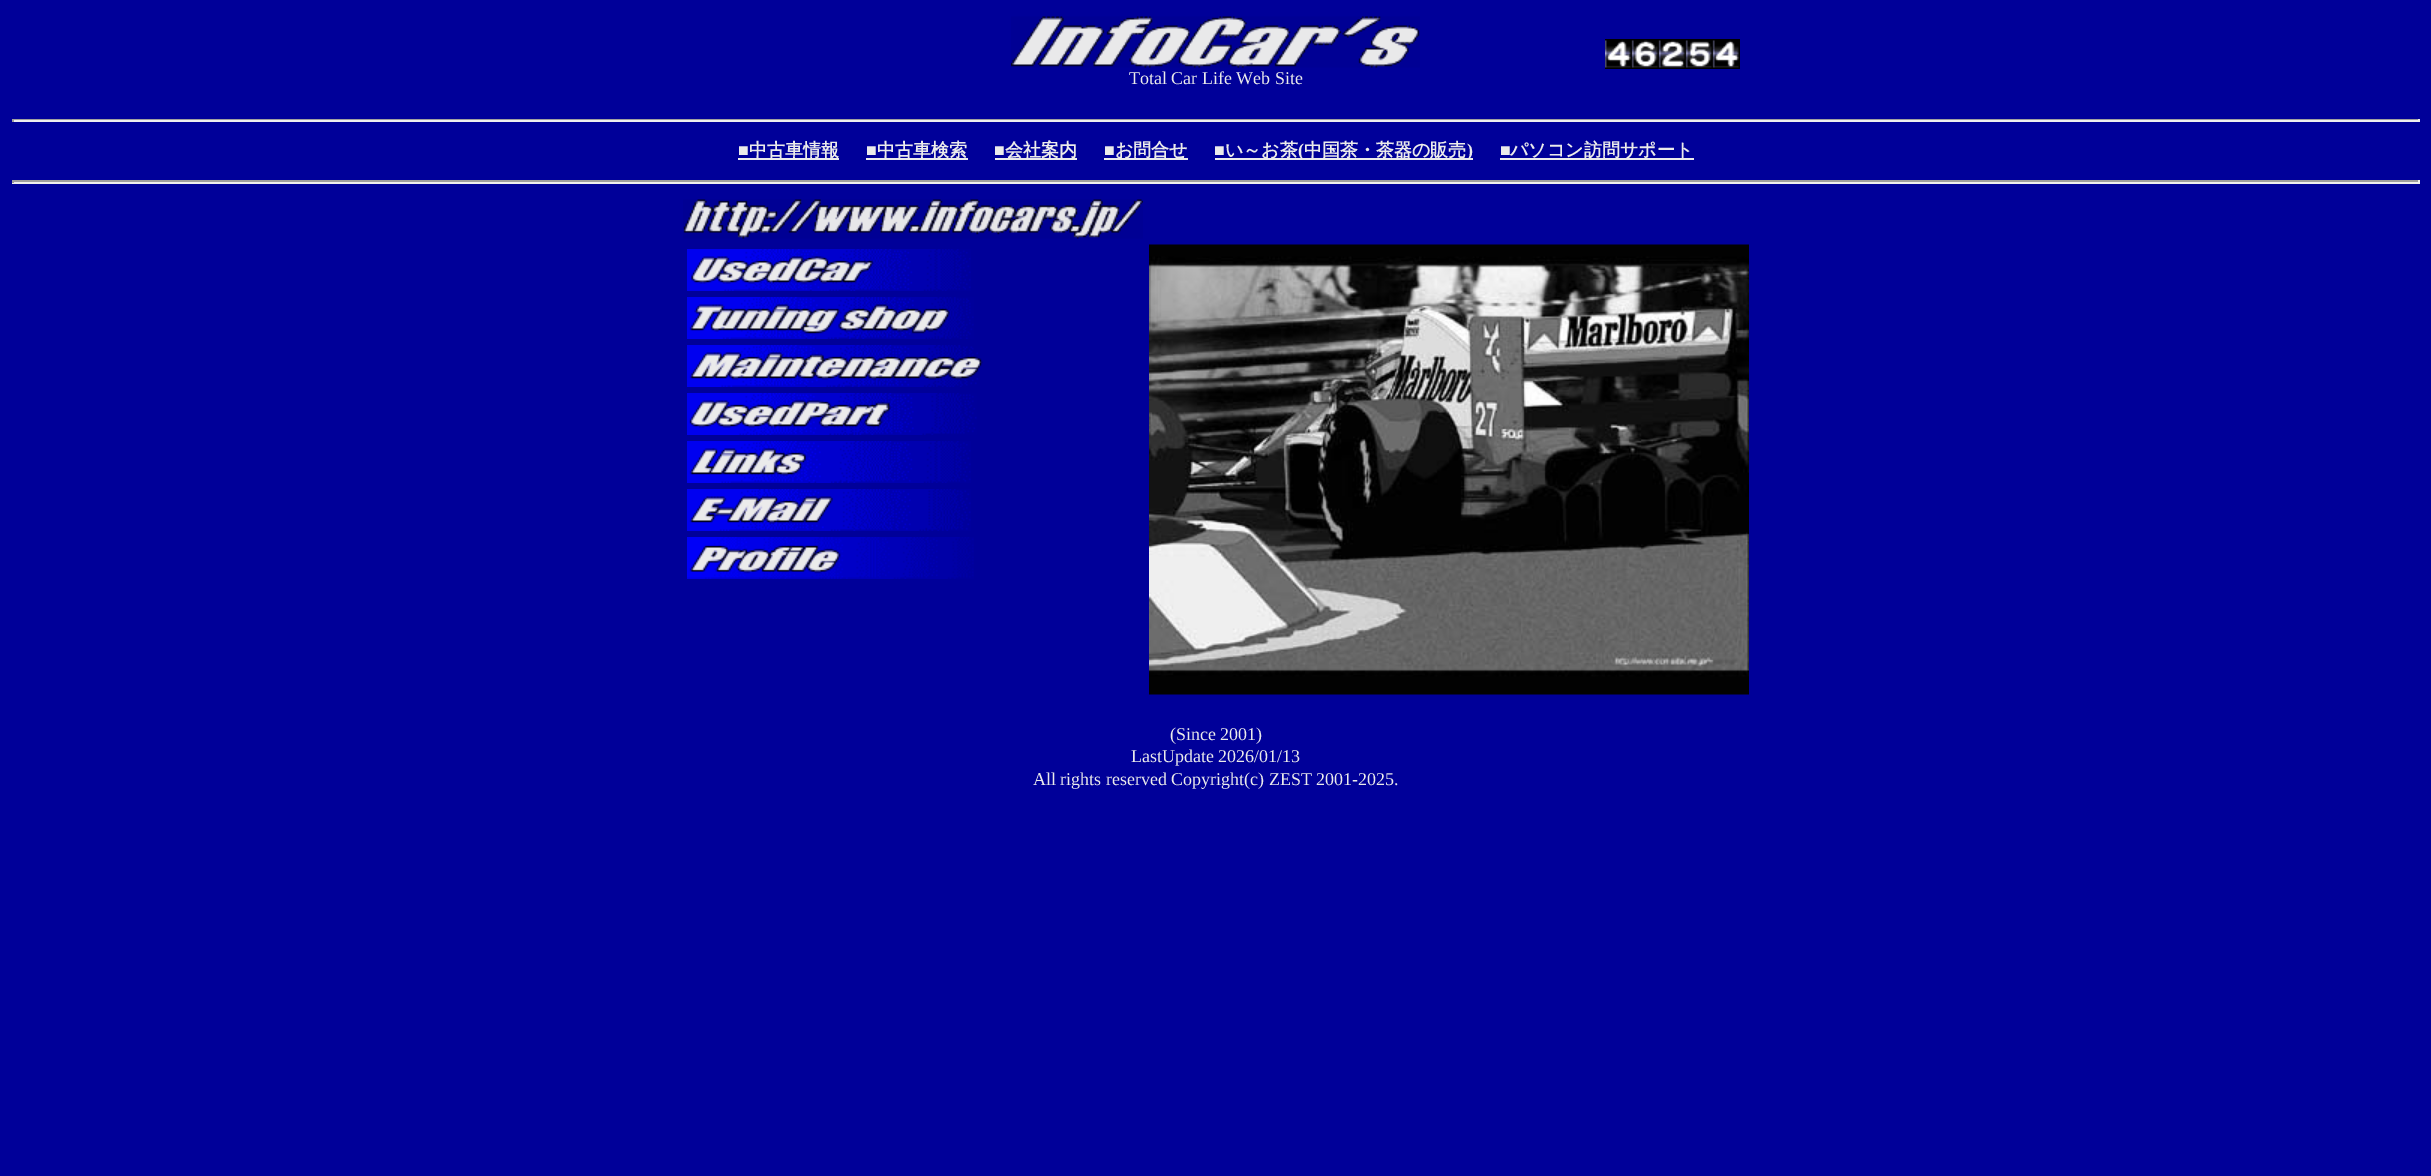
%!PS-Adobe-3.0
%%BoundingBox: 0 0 2431 1176
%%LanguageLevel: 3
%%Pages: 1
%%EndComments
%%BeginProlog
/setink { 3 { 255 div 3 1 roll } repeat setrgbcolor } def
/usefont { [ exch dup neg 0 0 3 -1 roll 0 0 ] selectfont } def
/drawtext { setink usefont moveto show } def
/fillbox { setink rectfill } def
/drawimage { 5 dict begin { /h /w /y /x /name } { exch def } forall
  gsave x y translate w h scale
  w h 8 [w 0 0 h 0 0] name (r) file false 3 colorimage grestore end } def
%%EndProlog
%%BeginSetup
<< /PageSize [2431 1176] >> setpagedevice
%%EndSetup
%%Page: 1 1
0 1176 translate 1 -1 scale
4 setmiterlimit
0 0 2431 1176 0 0 153 fillbox
(assets/img1.rgb) 1605 39 135 30 drawimage
(assets/img2.rgb) 1011 16 409 52 drawimage
(Total Car Life Web Site) 1129 84 /LiberationSerif-Regular 18 235 235 235 drawtext
12 119 2408 1 159 159 159 fillbox
2418 119 2 3 238 238 238 fillbox
12 120 2408 2 238 238 238 fillbox
12 119 2 3 159 159 159 fillbox
(■) 738 156 /LiberationSerif-Bold 18 235 235 235 drawtext
738 158 101 2 235 235 235 fillbox
(中古車情報) 749 156 /WenQuanYiZenHei-Bold 18 235 235 235 drawtext
(■) 866 156 /LiberationSerif-Bold 18 235 235 235 drawtext
866 158 102 2 235 235 235 fillbox
(中古車検索) 877 156 /WenQuanYiZenHei-Bold 18 235 235 235 drawtext
(■) 994 156 /LiberationSerif-Bold 18 235 235 235 drawtext
995 158 82 2 235 235 235 fillbox
(会社案内) 1005 156 /WenQuanYiZenHei-Bold 18 235 235 235 drawtext
(■) 1104 156 /LiberationSerif-Bold 18 235 235 235 drawtext
1104 158 84 2 235 235 235 fillbox
(お問合せ) 1115 156 /WenQuanYiZenHei-Bold 18 235 235 235 drawtext
(■) 1214 156 /LiberationSerif-Bold 18 235 235 235 drawtext
1215 158 258 2 235 235 235 fillbox
(い～お茶) 1225 156 /WenQuanYiZenHei-Bold 18 235 235 235 drawtext
(\() 1298 156 /LiberationSerif-Bold 18 235 235 235 drawtext
(中国茶・茶器の販売) 1304 156 /WenQuanYiZenHei-Bold 18 235 235 235 drawtext
(\)) 1467 156 /LiberationSerif-Bold 18 235 235 235 drawtext
(■) 1500 156 /LiberationSerif-Bold 18 235 235 235 drawtext
1500 158 194 2 235 235 235 fillbox
(パソコン訪問サポート) 1510 156 /WenQuanYiZenHei-Bold 18 235 235 235 drawtext
12 180 2408 2 159 159 159 fillbox
2418 180 2 3 238 238 238 fillbox
12 182 2408 2 238 238 238 fillbox
12 180 2 3 159 159 159 fillbox
(assets/img3.rgb) 683 199 460 40 drawimage
(assets/img4.rgb) 687 249 284 42 drawimage
(assets/img5.rgb) 687 297 287 42 drawimage
(assets/img6.rgb) 687 345 296 42 drawimage
(assets/img7.rgb) 687 393 290 42 drawimage
(assets/img8.rgb) 687 441 284 42 drawimage
(assets/img9.rgb) 687 489 284 42 drawimage
(assets/img10.rgb) 687 537 287 42 drawimage
(assets/img11.rgb) 1149 244 600 451 drawimage
(\(Since 2001\)) 1170 740 /LiberationSerif-Regular 18 235 235 235 drawtext
(LastUpdate 2026/01/13) 1131 762 /LiberationSerif-Regular 18 235 235 235 drawtext
(All rights reserved Copyright\(c\) ZEST 2001-2025.) 1033 785 /LiberationSerif-Regular 18 235 235 235 drawtext
showpage
%%EOF
